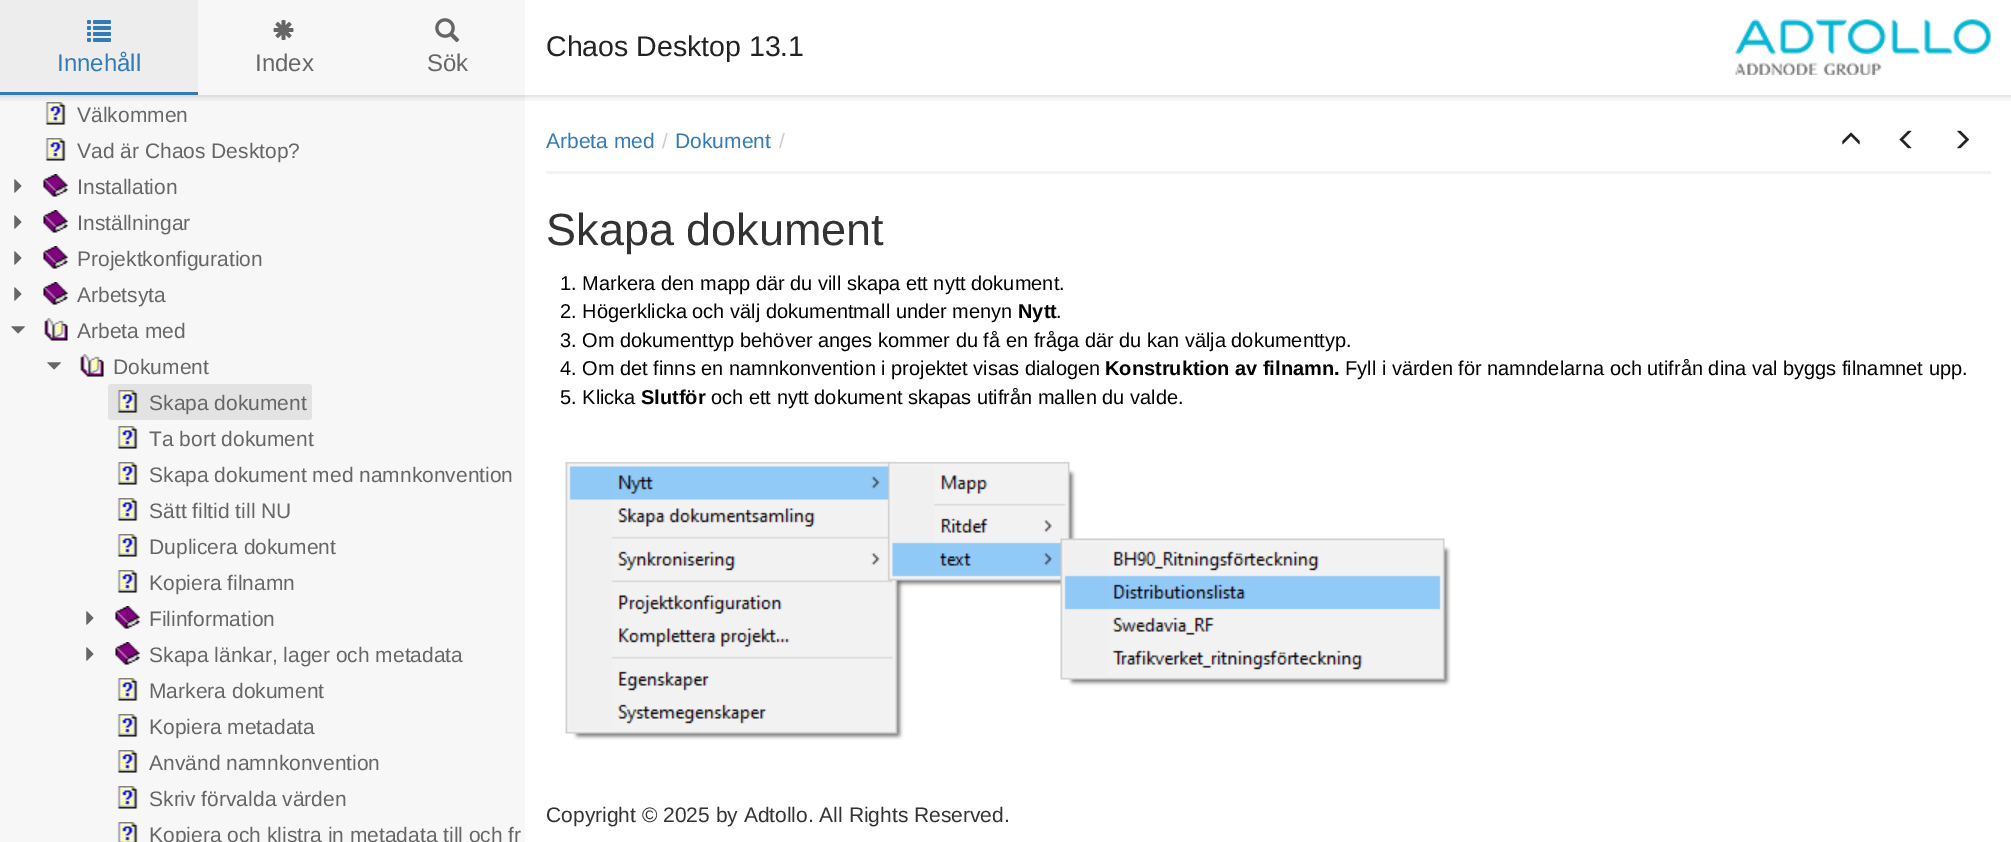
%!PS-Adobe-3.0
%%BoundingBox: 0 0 2011 842
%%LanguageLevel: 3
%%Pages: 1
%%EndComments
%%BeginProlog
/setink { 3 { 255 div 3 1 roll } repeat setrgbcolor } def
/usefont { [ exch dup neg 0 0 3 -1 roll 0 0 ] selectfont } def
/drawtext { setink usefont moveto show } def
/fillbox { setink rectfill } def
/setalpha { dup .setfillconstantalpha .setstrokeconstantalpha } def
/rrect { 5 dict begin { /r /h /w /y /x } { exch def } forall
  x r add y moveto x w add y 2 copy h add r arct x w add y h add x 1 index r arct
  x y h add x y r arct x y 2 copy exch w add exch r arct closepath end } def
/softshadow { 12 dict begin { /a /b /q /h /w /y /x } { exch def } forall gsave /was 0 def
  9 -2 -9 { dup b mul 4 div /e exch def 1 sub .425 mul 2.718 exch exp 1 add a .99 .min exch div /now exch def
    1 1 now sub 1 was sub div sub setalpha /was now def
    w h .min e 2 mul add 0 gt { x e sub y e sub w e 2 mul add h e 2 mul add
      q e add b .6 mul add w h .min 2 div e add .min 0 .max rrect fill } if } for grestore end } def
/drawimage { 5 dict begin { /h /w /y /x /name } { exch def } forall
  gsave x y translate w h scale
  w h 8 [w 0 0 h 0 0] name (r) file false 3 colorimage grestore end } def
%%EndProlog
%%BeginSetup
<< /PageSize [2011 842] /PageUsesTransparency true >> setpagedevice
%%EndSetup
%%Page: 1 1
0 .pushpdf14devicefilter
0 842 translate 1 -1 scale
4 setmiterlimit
0 0 2011 842 255 255 255 fillbox
gsave
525 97 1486 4 rectclip
0 0 0 setink
0 2 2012 96 0 4 0.1 softshadow
grestore
0 0 525 842 247 247 247 fillbox
525 95 1486 2 230 230 230 fillbox
gsave
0 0 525 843 rectclip
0 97 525 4 rectclip
0 0 0 setink
0 2 525 96 0 4 0.1 softshadow
grestore
0 95 525 2 222 222 222 fillbox
0 0 198 92 237 237 237 fillbox
(assets/img1.rgb) 87 20 24 22 drawimage
(Innehåll) 57 71 /LiberationSans-Regular 24 51 122 183 drawtext
0 92 198 3 51 122 183 fillbox
(assets/img2.rgb) 273 20 21 20 drawimage
(Index) 255 71 /LiberationSans-Regular 24 102 102 102 drawtext
(assets/img3.rgb) 435 18 25 25 drawimage
(Sök) 427 71 /LiberationSans-Regular 24 102 102 102 drawtext
(assets/img4.rgb) 45 102 21 23 drawimage
(Välkommen) 77 122 /LiberationSans-Regular 21 102 102 102 drawtext
(assets/img5.rgb) 45 138 21 23 drawimage
(Vad är Chaos Desktop?) 77 158 /LiberationSans-Regular 21 102 102 102 drawtext
(assets/img6.rgb) 14 179 8 14 drawimage
(assets/img7.rgb) 43 174 25 23 drawimage
(Installation) 77 194 /LiberationSans-Regular 21 102 102 102 drawtext
(assets/img6.rgb) 14 215 8 14 drawimage
(assets/img7.rgb) 43 210 25 23 drawimage
(Inställningar) 77 230 /LiberationSans-Regular 21 102 102 102 drawtext
(assets/img6.rgb) 14 251 8 14 drawimage
(assets/img7.rgb) 43 246 25 23 drawimage
(Projektkonfiguration) 77 266 /LiberationSans-Regular 21 102 102 102 drawtext
(assets/img6.rgb) 14 287 8 14 drawimage
(assets/img7.rgb) 43 282 25 23 drawimage
(Arbetsyta) 77 302 /LiberationSans-Regular 21 102 102 102 drawtext
(assets/img8.rgb) 11 326 14 8 drawimage
(assets/img9.rgb) 44 318 24 23 drawimage
(Arbeta med) 77 338 /LiberationSans-Regular 21 102 102 102 drawtext
(assets/img8.rgb) 47 362 14 8 drawimage
(assets/img9.rgb) 80 354 24 23 drawimage
(Dokument) 113 374 /LiberationSans-Regular 21 102 102 102 drawtext
227 227 227 setink
108 384 204 36 3 rrect fill
(assets/img10.rgb) 117 390 21 23 drawimage
(Skapa dokument) 149 410 /LiberationSans-Regular 21 102 102 102 drawtext
(assets/img5.rgb) 117 426 21 23 drawimage
(Ta bort dokument) 149 446 /LiberationSans-Regular 21 102 102 102 drawtext
(assets/img5.rgb) 117 462 21 23 drawimage
(Skapa dokument med namnkonvention) 149 482 /LiberationSans-Regular 21 102 102 102 drawtext
(assets/img5.rgb) 117 498 21 23 drawimage
(Sätt filtid till NU) 149 518 /LiberationSans-Regular 21 102 102 102 drawtext
(assets/img5.rgb) 117 534 21 23 drawimage
(Duplicera dokument) 149 554 /LiberationSans-Regular 21 102 102 102 drawtext
(assets/img5.rgb) 117 570 21 23 drawimage
(Kopiera filnamn) 149 590 /LiberationSans-Regular 21 102 102 102 drawtext
(assets/img6.rgb) 86 611 8 14 drawimage
(assets/img7.rgb) 115 606 25 23 drawimage
(Filinformation) 149 626 /LiberationSans-Regular 21 102 102 102 drawtext
(assets/img6.rgb) 86 647 8 14 drawimage
(assets/img7.rgb) 115 642 25 23 drawimage
(Skapa länkar, lager och metadata) 149 662 /LiberationSans-Regular 21 102 102 102 drawtext
(assets/img5.rgb) 117 678 21 23 drawimage
(Markera dokument) 149 698 /LiberationSans-Regular 21 102 102 102 drawtext
(assets/img5.rgb) 117 714 21 23 drawimage
(Kopiera metadata) 149 734 /LiberationSans-Regular 21 102 102 102 drawtext
(assets/img5.rgb) 117 750 21 23 drawimage
(Använd namnkonvention) 149 770 /LiberationSans-Regular 21 102 102 102 drawtext
(assets/img5.rgb) 117 786 21 23 drawimage
(Skriv förvalda värden) 149 806 /LiberationSans-Regular 21 102 102 102 drawtext
(assets/img11.rgb) 117 822 21 20 drawimage
(Kopiera och klistra in metadata till och fr) 149 842 /LiberationSans-Regular 21 102 102 102 drawtext
(Chaos Desktop 13.1) 546 56 /LiberationSans-Regular 28.5 34 34 34 drawtext
(assets/img12.rgb) 1735 19 256 56 drawimage
546 171 1445 3 242 242 242 fillbox
(Arbeta med) 546 148 /LiberationSans-Regular 21 51 122 183 drawtext
(/) 662 148 /LiberationSans-Regular 21 204 204 204 drawtext
(Dokument) 675 148 /LiberationSans-Regular 21 51 122 183 drawtext
(/) 779 148 /LiberationSans-Regular 21 204 204 204 drawtext
(assets/img13.rgb) 1842 132 18 13 drawimage
(assets/img14.rgb) 1899 130 13 19 drawimage
(assets/img15.rgb) 1957 130 12 19 drawimage
(Skapa dokument) 546 245 /LiberationSans-Regular 45 51 51 51 drawtext
(1. Markera den mapp där du vill skapa ett nytt dokument.) 560 290 /LiberationSans-Regular 20 0 0 0 drawtext
(2. Högerklicka och välj dokumentmall under menyn) 560 318 /LiberationSans-Regular 20 0 0 0 drawtext
(Nytt) 1018 318 /LiberationSans-Bold 20 0 0 0 drawtext
(.) 1056 318 /LiberationSans-Regular 20 0 0 0 drawtext
(3. Om dokumenttyp behöver anges kommer du få en fråga där du kan välja dokumenttyp.) 560 347 /LiberationSans-Regular 20 0 0 0 drawtext
(4. Om det finns en namnkonvention i projektet visas dialogen) 560 375 /LiberationSans-Regular 20 0 0 0 drawtext
(Konstruktion av filnamn.) 1105 375 /LiberationSans-Bold 20 0 0 0 drawtext
(Fyll i värden för namndelarna och utifrån dina val byggs filnamnet upp.) 1345 375 /LiberationSans-Regular 20 0 0 0 drawtext
(5. Klicka) 560 404 /LiberationSans-Regular 20 0 0 0 drawtext
(Slutför) 641 404 /LiberationSans-Bold 20 0 0 0 drawtext
(och ett nytt dokument skapas utifrån mallen du valde.) 711 404 /LiberationSans-Regular 20 0 0 0 drawtext
(assets/img16.rgb) 565 461 886 279 drawimage
(Copyright © 2025 by Adtollo. All Rights Reserved.) 546 822 /LiberationSans-Regular 21 51 51 51 drawtext
.poppdf14devicefilter showpage
%%EOF
